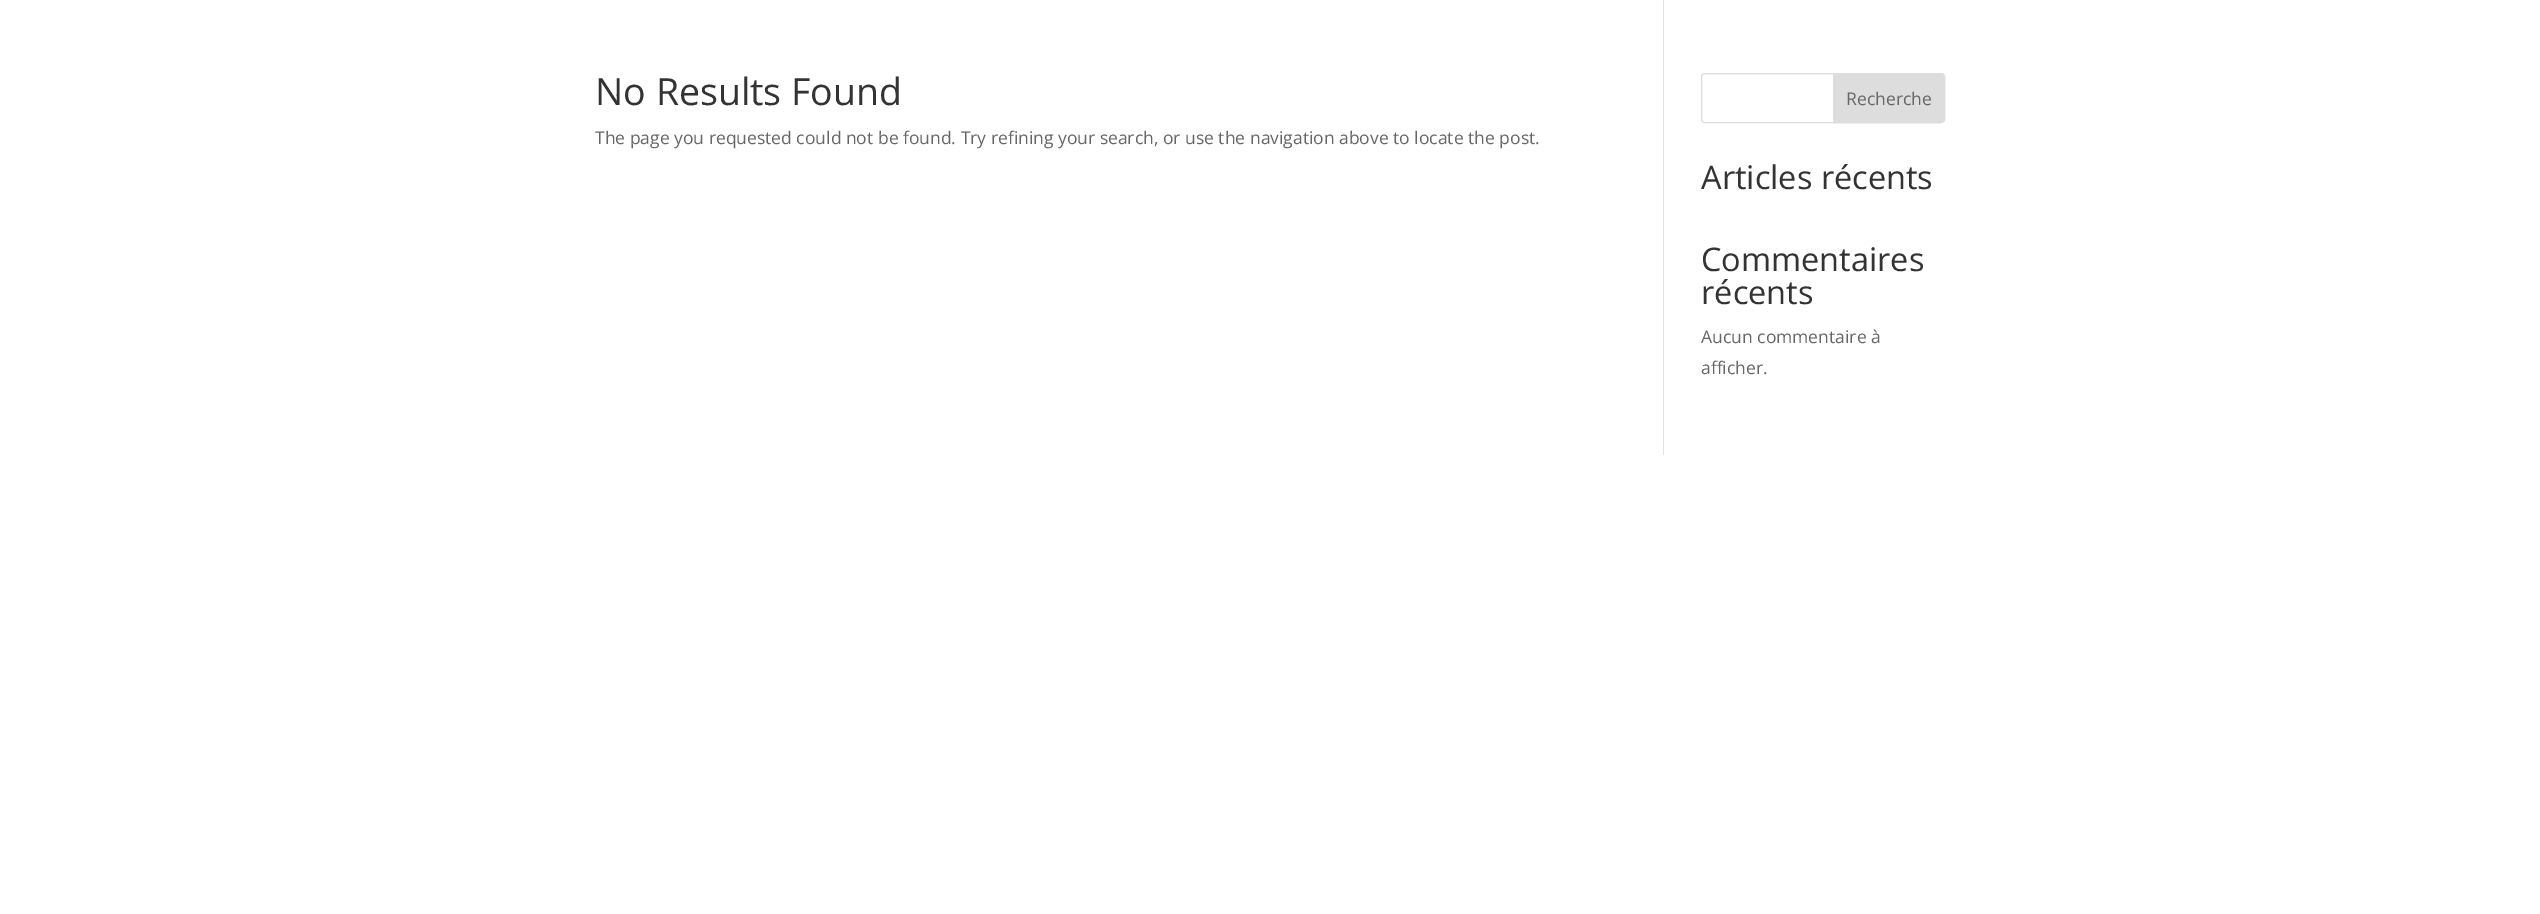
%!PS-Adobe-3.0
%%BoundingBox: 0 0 2540 914
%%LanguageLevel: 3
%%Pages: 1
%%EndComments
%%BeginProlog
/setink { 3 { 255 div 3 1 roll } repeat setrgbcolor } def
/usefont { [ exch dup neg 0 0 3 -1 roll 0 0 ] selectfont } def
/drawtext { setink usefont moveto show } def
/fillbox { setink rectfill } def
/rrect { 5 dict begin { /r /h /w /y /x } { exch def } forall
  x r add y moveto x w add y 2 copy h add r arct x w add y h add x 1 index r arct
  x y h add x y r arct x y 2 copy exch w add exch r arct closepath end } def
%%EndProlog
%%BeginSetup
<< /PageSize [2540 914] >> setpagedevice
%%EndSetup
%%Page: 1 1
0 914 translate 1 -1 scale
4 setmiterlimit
0 0 2540 914 255 255 255 fillbox
1663 0 1 455 226 226 226 fillbox
(No Results Found) 595 105 /OpenSans-Regular 37.5 51 51 51 drawtext
(The page you requested could not be found. Try refining your search, or use the navigation above to locate the post.) 595 144 /OpenSans-Regular 17.5 102 102 102 drawtext
221 221 221 setink
1701.5 73.5 243 49 3.5 rrect stroke
1833.5 73.5 moveto 1941 73.5 lineto 1943 73.5 1944.5 75 1944.5 77 curveto 1944.5 119 lineto 1944.5 121 1943 122.5 1941 122.5 curveto 1833.5 122.5 lineto closepath gsave fill grestore
stroke
(Recherche) 1846 105 /OpenSans-Regular 17.5 102 102 102 drawtext
(Articles récents) 1701 189 /OpenSans-Regular 32.5 51 51 51 drawtext
(Commentaires) 1701 271 /OpenSans-Regular 32.5 51 51 51 drawtext
(récents) 1701 304 /OpenSans-Regular 32.5 51 51 51 drawtext
(Aucun commentaire à) 1701 343 /OpenSans-Regular 17.5 102 102 102 drawtext
(afficher.) 1701 374 /OpenSans-Regular 17.5 102 102 102 drawtext
showpage
%%EOF
